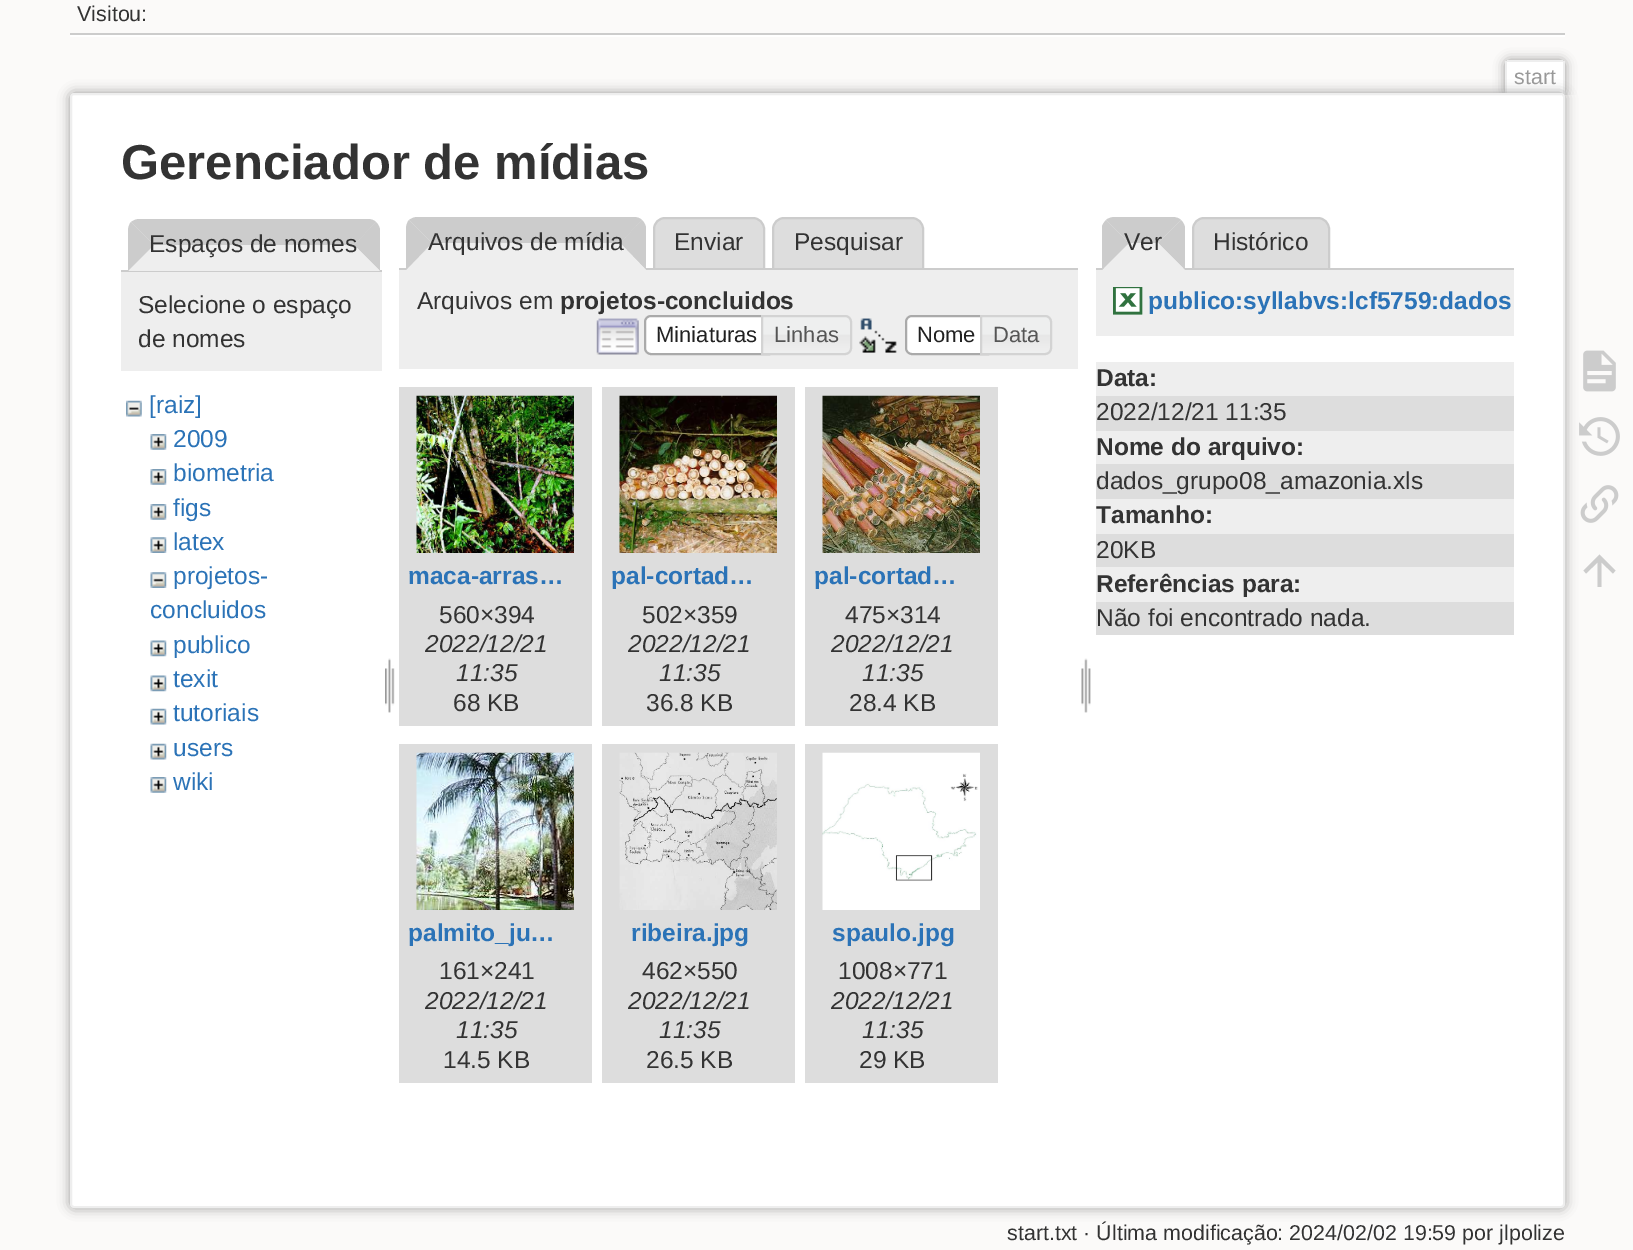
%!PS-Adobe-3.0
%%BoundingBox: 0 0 1633 1250
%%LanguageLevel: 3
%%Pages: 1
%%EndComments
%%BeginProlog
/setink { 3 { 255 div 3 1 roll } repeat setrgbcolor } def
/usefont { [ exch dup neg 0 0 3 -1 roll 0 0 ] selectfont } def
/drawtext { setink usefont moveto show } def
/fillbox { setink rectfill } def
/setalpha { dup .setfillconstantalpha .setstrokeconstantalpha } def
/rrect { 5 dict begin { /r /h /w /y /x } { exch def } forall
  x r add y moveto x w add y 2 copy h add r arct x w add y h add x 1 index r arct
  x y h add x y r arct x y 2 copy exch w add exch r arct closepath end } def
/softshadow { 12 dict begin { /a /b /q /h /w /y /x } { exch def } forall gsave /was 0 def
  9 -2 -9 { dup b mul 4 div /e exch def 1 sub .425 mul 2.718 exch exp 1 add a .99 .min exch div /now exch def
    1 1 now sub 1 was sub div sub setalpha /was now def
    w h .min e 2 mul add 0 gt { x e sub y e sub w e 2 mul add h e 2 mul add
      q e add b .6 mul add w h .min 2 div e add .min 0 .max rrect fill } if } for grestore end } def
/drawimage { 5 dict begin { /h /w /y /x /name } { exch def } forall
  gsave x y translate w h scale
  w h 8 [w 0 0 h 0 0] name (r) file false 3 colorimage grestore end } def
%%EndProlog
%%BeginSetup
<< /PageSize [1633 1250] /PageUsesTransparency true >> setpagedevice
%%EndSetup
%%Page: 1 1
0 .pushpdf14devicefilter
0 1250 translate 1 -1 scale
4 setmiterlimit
0 0 1633 1250 251 250 249 fillbox
70 35 1495 2 255 255 255 fillbox
70 33 1495 2 204 204 204 fillbox
(Visitou:) 77 21 /LiberationSans-Regular 21.45 51 51 51 drawtext
gsave
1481 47 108 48 rectclip
153 153 153 setink
1505 60 60 35 4 5.5 1 softshadow
grestore
255 255 255 setink
1509 61 moveto 1561 61 lineto 1562 61 1563 62 1563 63 curveto 1563 95 lineto 1507 95 lineto 1507 63 lineto 1507 62 1508 61 1509 61 curveto closepath fill
1507 60 56 2 238 238 238 fillbox
1563 61 2 34 238 238 238 fillbox
1505 61 2 34 238 238 238 fillbox
(start) 1514 84 /LiberationSans-Regular 21.45 153 153 153 drawtext
70 93 1495 1115 4 6 1 softshadow
255 255 255 setink
71 94 1493 1113 3 rrect gsave fill grestore
238 238 238 setink
2 setlinewidth
stroke
(Gerenciador de mídias) 121 179 /LiberationSans-Bold 49 51 51 51 drawtext
204 204 204 setink
140 219 moveto 136 219 134 220 131 222 curveto 154 245 lineto 354 245 lineto 376 222 lineto 374 220 371 219 368 219 curveto closepath fill
121 270 261 2 204 204 204 fillbox
380 271 moveto 354 245 lineto 376 222 lineto 378 224 379 226 380 229 curveto closepath fill
238 238 238 setink
380 271 moveto 354 245 lineto 154 245 lineto 128 271 lineto closepath fill
204 204 204 setink
131 222 moveto 129 224 128 228 128 231 curveto 128 271 lineto 154 245 lineto closepath fill
(Espaços de nomes) 149 252 /LiberationSans-Regular 24.5 51 51 51 drawtext
121 272 261 99 238 238 238 fillbox
(Selecione o espaço) 138 313 /LiberationSans-Regular 24.5 51 51 51 drawtext
(de nomes) 138 347 /LiberationSans-Regular 24.5 51 51 51 drawtext
(assets/img1.rgb) 126 400 16 17 drawimage
([raiz]) 149 413 /LiberationSans-Regular 24.5 43 115 183 drawtext
(assets/img2.rgb) 150 434 17 16 drawimage
(2009) 173 447 /LiberationSans-Regular 24.5 43 115 183 drawtext
(assets/img2.rgb) 150 469 17 16 drawimage
(biometria) 173 481 /LiberationSans-Regular 24.5 43 115 183 drawtext
(assets/img2.rgb) 150 504 17 16 drawimage
(figs) 173 516 /LiberationSans-Regular 24.5 43 115 183 drawtext
(assets/img3.rgb) 150 537 17 16 drawimage
(latex) 173 550 /LiberationSans-Regular 24.5 43 115 183 drawtext
(assets/img4.rgb) 150 572 17 16 drawimage
(projetos-) 173 584 /LiberationSans-Regular 24.5 43 115 183 drawtext
(concluidos) 150 618 /LiberationSans-Regular 24.5 43 115 183 drawtext
(assets/img5.rgb) 150 640 17 17 drawimage
(publico) 173 653 /LiberationSans-Regular 24.5 43 115 183 drawtext
(assets/img5.rgb) 150 675 17 17 drawimage
(texit) 173 687 /LiberationSans-Regular 24.5 43 115 183 drawtext
(assets/img6.rgb) 150 708 17 17 drawimage
(tutoriais) 173 721 /LiberationSans-Regular 24.5 43 115 183 drawtext
(assets/img6.rgb) 150 743 17 17 drawimage
(users) 173 756 /LiberationSans-Regular 24.5 43 115 183 drawtext
(assets/img2.rgb) 150 777 17 16 drawimage
(wiki) 173 790 /LiberationSans-Regular 24.5 43 115 183 drawtext
(assets/img7.rgb) 385 658 10 55 drawimage
204 204 204 setink
418 217 moveto 634 217 lineto 637 217 640 218 642 220 curveto 620 243 lineto 432 243 lineto 409 220 lineto 412 218 414 217 418 217 curveto closepath fill
221 221 221 setink
665 218 moveto 753 218 lineto 759 218 764 223 764 229 curveto 764 269 lineto 654 269 lineto 654 229 lineto 654 223 659 218 665 218 curveto closepath gsave fill grestore
204 204 204 setink
stroke
221 221 221 setink
784 218 moveto 912 218 lineto 918 218 923 223 923 229 curveto 923 269 lineto 773 269 lineto 773 229 lineto 773 223 778 218 784 218 curveto closepath gsave fill grestore
204 204 204 setink
stroke
399 268 679 2 204 204 204 fillbox
642 220 moveto 620 243 lineto 646 270 lineto 646 227 lineto 645 224 644 222 642 220 curveto closepath fill
238 238 238 setink
646 270 moveto 620 243 lineto 432 243 lineto 406 270 lineto closepath fill
204 204 204 setink
406 270 moveto 432 243 lineto 409 220 lineto 407 222 406 226 406 229 curveto closepath fill
(Arquivos de mídia) 428 250 /LiberationSans-Regular 24.5 51 51 51 drawtext
(Enviar) 674 250 /LiberationSans-Regular 24.5 51 51 51 drawtext
(Pesquisar) 794 250 /LiberationSans-Regular 24.5 51 51 51 drawtext
399 270 679 99 238 238 238 fillbox
(Arquivos em) 417 309 /LiberationSans-Regular 24.5 51 51 51 drawtext
(projetos-concluidos) 560 309 /LiberationSans-Bold 24.5 51 51 51 drawtext
(assets/img8.rgb) 596 318 43 37 drawimage
255 255 255 setink
651 315 moveto 770 315 lineto 770 355 lineto 651 355 lineto 647 355 644 352 644 348 curveto 644 322 lineto 644 318 647 315 651 315 curveto closepath fill
(assets/img9.rgb) 644 315 5 40 drawimage
170 170 170 setink
651 316 moveto 769 316 lineto 769 354 lineto 651 354 lineto 647.5 354 645 351.5 645 348 curveto 645 322 lineto 645 318.5 647.5 316 651 316 curveto closepath stroke
(Miniaturas) 656 342 /LiberationSans-Regular 22 33 33 33 drawtext
(assets/img10.rgb) 763 315 89 40 drawimage
211 211 211 setink
762 316 moveto 845 316 lineto 848.5 316 851 318.5 851 322 curveto 851 348 lineto 851 351.5 848.5 354 845 354 curveto 762 354 lineto closepath stroke
(Linhas) 774 342 /LiberationSans-Regular 22 85 85 85 drawtext
(assets/img11.rgb) 859 318 38 35 drawimage
255 255 255 setink
912 315 moveto 989 315 lineto 989 355 lineto 912 355 lineto 908 355 905 352 905 348 curveto 905 322 lineto 905 318 908 315 912 315 curveto closepath fill
(assets/img12.rgb) 905 315 5 40 drawimage
170 170 170 setink
912 316 moveto 988 316 lineto 988 354 lineto 912 354 lineto 908.5 354 906 351.5 906 348 curveto 906 322 lineto 906 318.5 908.5 316 912 316 curveto closepath stroke
(Nome) 917 342 /LiberationSans-Regular 22 33 33 33 drawtext
(assets/img13.rgb) 982 315 70 40 drawimage
211 211 211 setink
981 316 moveto 1045 316 lineto 1048.5 316 1051 318.5 1051 322 curveto 1051 348 lineto 1051 351.5 1048.5 354 1045 354 curveto 981 354 lineto closepath stroke
(Data) 993 342 /LiberationSans-Regular 22 85 85 85 drawtext
399 387 193 339 221 221 221 fillbox
(assets/img14.rgb) 416 395 158 158 drawimage
(maca-arras…) 408 584 /LiberationSans-Bold 24.5 43 115 183 drawtext
(560×394) 439 623 /LiberationSans-Regular 24.5 51 51 51 drawtext
(2022/12/21) 425 652 /LiberationSans-Italic 24.5 51 51 51 drawtext
(11:35) 456 681 /LiberationSans-Italic 24.5 51 51 51 drawtext
(68 KB) 453 711 /LiberationSans-Regular 24.5 51 51 51 drawtext
602 387 193 339 221 221 221 fillbox
(assets/img15.rgb) 619 395 158 158 drawimage
(pal-cortad…) 611 584 /LiberationSans-Bold 24.5 43 115 183 drawtext
(502×359) 642 623 /LiberationSans-Regular 24.5 51 51 51 drawtext
(2022/12/21) 628 652 /LiberationSans-Italic 24.5 51 51 51 drawtext
(11:35) 659 681 /LiberationSans-Italic 24.5 51 51 51 drawtext
(36.8 KB) 646 711 /LiberationSans-Regular 24.5 51 51 51 drawtext
805 387 193 339 221 221 221 fillbox
(assets/img16.rgb) 822 395 158 158 drawimage
(pal-cortad…) 814 584 /LiberationSans-Bold 24.5 43 115 183 drawtext
(475×314) 845 623 /LiberationSans-Regular 24.5 51 51 51 drawtext
(2022/12/21) 831 652 /LiberationSans-Italic 24.5 51 51 51 drawtext
(11:35) 862 681 /LiberationSans-Italic 24.5 51 51 51 drawtext
(28.4 KB) 849 711 /LiberationSans-Regular 24.5 51 51 51 drawtext
399 744 193 339 221 221 221 fillbox
(assets/img17.rgb) 416 752 158 158 drawimage
(palmito_ju…) 408 941 /LiberationSans-Bold 24.5 43 115 183 drawtext
(161×241) 439 979 /LiberationSans-Regular 24.5 51 51 51 drawtext
(2022/12/21) 425 1009 /LiberationSans-Italic 24.5 51 51 51 drawtext
(11:35) 456 1038 /LiberationSans-Italic 24.5 51 51 51 drawtext
(14.5 KB) 443 1068 /LiberationSans-Regular 24.5 51 51 51 drawtext
602 744 193 339 221 221 221 fillbox
(assets/img18.rgb) 619 752 158 158 drawimage
(ribeira.jpg) 631 941 /LiberationSans-Bold 24.5 43 115 183 drawtext
(462×550) 642 979 /LiberationSans-Regular 24.5 51 51 51 drawtext
(2022/12/21) 628 1009 /LiberationSans-Italic 24.5 51 51 51 drawtext
(11:35) 659 1038 /LiberationSans-Italic 24.5 51 51 51 drawtext
(26.5 KB) 646 1068 /LiberationSans-Regular 24.5 51 51 51 drawtext
805 744 193 339 221 221 221 fillbox
(assets/img19.rgb) 822 752 158 158 drawimage
(spaulo.jpg) 832 941 /LiberationSans-Bold 24.5 43 115 183 drawtext
(1008×771) 838 979 /LiberationSans-Regular 24.5 51 51 51 drawtext
(2022/12/21) 831 1009 /LiberationSans-Italic 24.5 51 51 51 drawtext
(11:35) 862 1038 /LiberationSans-Italic 24.5 51 51 51 drawtext
(29 KB) 859 1068 /LiberationSans-Regular 24.5 51 51 51 drawtext
(assets/img20.rgb) 1081 658 10 55 drawimage
204 204 204 setink
1115 217 moveto 1172 217 lineto 1176 217 1179 218 1181 220 curveto 1158 243 lineto 1129 243 lineto 1106 220 lineto 1108 218 1112 217 1115 217 curveto closepath fill
221 221 221 setink
1204 218 moveto 1318 218 lineto 1324 218 1329 223 1329 229 curveto 1329 269 lineto 1193 269 lineto 1193 229 lineto 1193 223 1198 218 1204 218 curveto closepath gsave fill grestore
204 204 204 setink
stroke
1096 268 418 2 204 204 204 fillbox
1181 220 moveto 1158 243 lineto 1185 270 lineto 1185 227 lineto 1184 224 1183 222 1181 220 curveto closepath fill
238 238 238 setink
1185 270 moveto 1158 243 lineto 1129 243 lineto 1102 270 lineto closepath fill
204 204 204 setink
1102 270 moveto 1129 243 lineto 1106 220 lineto 1104 222 1103 224 1102 226 curveto closepath fill
(Ver) 1124 250 /LiberationSans-Regular 24.5 51 51 51 drawtext
(Histórico) 1213 250 /LiberationSans-Regular 24.5 51 51 51 drawtext
1096 270 418 66 238 238 238 fillbox
(assets/img21.rgb) 1113 287 30 28 drawimage
(publico:syllabvs:lcf5759:dados) 1148 309 /LiberationSans-Bold 24.5 43 115 183 drawtext
1096 362 418 34 238 238 238 fillbox
(Data:) 1096 386 /LiberationSans-Bold 24.5 51 51 51 drawtext
1096 396 418 35 221 221 221 fillbox
(2022/12/21 11:35) 1096 420 /LiberationSans-Regular 24.5 51 51 51 drawtext
1096 431 418 33 238 238 238 fillbox
(Nome do arquivo:) 1096 455 /LiberationSans-Bold 24.5 51 51 51 drawtext
1096 464 418 35 221 221 221 fillbox
(dados_grupo08_amazonia.xls) 1096 489 /LiberationSans-Regular 24.5 51 51 51 drawtext
1096 499 418 35 238 238 238 fillbox
(Tamanho:) 1096 523 /LiberationSans-Bold 24.5 51 51 51 drawtext
1096 534 418 33 221 221 221 fillbox
(20KB) 1096 558 /LiberationSans-Regular 24.5 51 51 51 drawtext
1096 567 418 35 238 238 238 fillbox
(Referências para:) 1096 592 /LiberationSans-Bold 24.5 51 51 51 drawtext
1096 602 418 33 221 221 221 fillbox
(Não foi encontrado nada.) 1096 626 /LiberationSans-Regular 24.5 51 51 51 drawtext
(start.txt · Última modificação: 2024/02/02 19:59 por jlpolize) 1007 1240 /LiberationSans-Regular 21.45 51 51 51 drawtext
(assets/img22.rgb) 1583 350 33 42 drawimage
(assets/img23.rgb) 1579 417 41 39 drawimage
(assets/img24.rgb) 1580 485 39 38 drawimage
204 204 204 setink
1601.5 587 moveto 1597.5 587 lineto 1597.5 562.5 lineto 1586 573.5 lineto 1583.5 570.5 lineto 1599.5 554.5 lineto 1615.5 570.5 lineto 1613 573.5 lineto 1601.5 562.5 lineto closepath fill
.poppdf14devicefilter showpage
%%EOF
